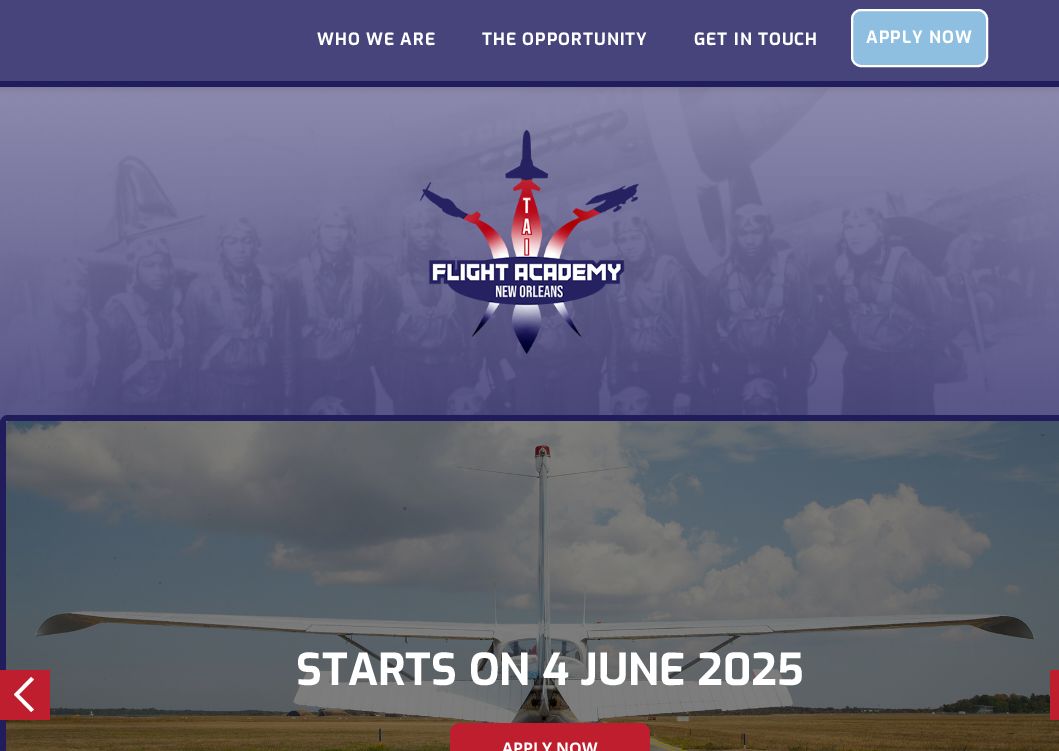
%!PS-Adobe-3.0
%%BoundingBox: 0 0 1059 751
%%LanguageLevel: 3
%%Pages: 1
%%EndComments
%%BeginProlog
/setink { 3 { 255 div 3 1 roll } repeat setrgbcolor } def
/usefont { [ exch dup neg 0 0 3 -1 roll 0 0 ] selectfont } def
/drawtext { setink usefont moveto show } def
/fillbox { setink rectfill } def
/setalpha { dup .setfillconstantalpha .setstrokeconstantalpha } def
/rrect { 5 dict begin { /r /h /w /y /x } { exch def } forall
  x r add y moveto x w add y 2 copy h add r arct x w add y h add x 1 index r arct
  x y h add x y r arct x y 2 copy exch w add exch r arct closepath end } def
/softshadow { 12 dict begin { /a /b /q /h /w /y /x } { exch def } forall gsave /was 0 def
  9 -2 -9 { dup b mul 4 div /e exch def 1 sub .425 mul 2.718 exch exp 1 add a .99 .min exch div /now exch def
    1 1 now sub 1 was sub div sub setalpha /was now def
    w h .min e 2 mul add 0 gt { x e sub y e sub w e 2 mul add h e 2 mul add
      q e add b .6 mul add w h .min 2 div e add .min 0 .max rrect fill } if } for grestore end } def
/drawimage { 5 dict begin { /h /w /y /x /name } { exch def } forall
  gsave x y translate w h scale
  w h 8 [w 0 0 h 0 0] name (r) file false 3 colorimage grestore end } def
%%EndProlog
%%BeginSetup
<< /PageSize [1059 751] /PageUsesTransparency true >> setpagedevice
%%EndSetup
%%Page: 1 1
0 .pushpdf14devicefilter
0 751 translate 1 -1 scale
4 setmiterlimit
0 0 1059 751 255 255 255 fillbox
(assets/img1.rgb) 0 87 1059 336 drawimage
51 51 51 setink
0 2 1059 87 0 4 0.21 softshadow
0 0 1059 81 71 68 123 fillbox
0 81 1059 6 33 29 92 fillbox
/Exo-Bold 17 usefont
255 255 255 setink
317 45 moveto 1 0 (WHO WE ARE) ashow
482 45 moveto 1 0 (THE OPPORTUNITY) ashow
694 45 moveto 1 0 (GET IN TOUCH) ashow
142 191 224 setink
852 10 135 56 9 rrect gsave fill grestore
255 255 255 setink
2 setlinewidth
stroke
866 43 moveto 1 0 (APPLY NOW) ashow
(assets/img2.rgb) 420 130 219 224 drawimage
33 29 92 setink
6 setlinewidth
3 418 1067 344 5 rrect stroke
(assets/img3.rgb) 6 421 1053 330 drawimage
0 670 50 50 190 30 45 fillbox
255 255 255 setink
14 694.5 moveto 31 677 lineto 34 679.5 lineto 19 694.5 lineto 34 709.5 lineto 31 712 lineto closepath fill
(STARTS ON 4 JUNE 2025) 296 685 /Exo-Bold 44 255 255 255 drawtext
190 30 45 setink
450 723 200 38 10 rrect fill
(APPLY NOW) 502 754 /OpenSans-Bold 16 255 255 255 drawtext
1050 670 9 50 190 30 45 fillbox
.poppdf14devicefilter showpage
%%EOF
